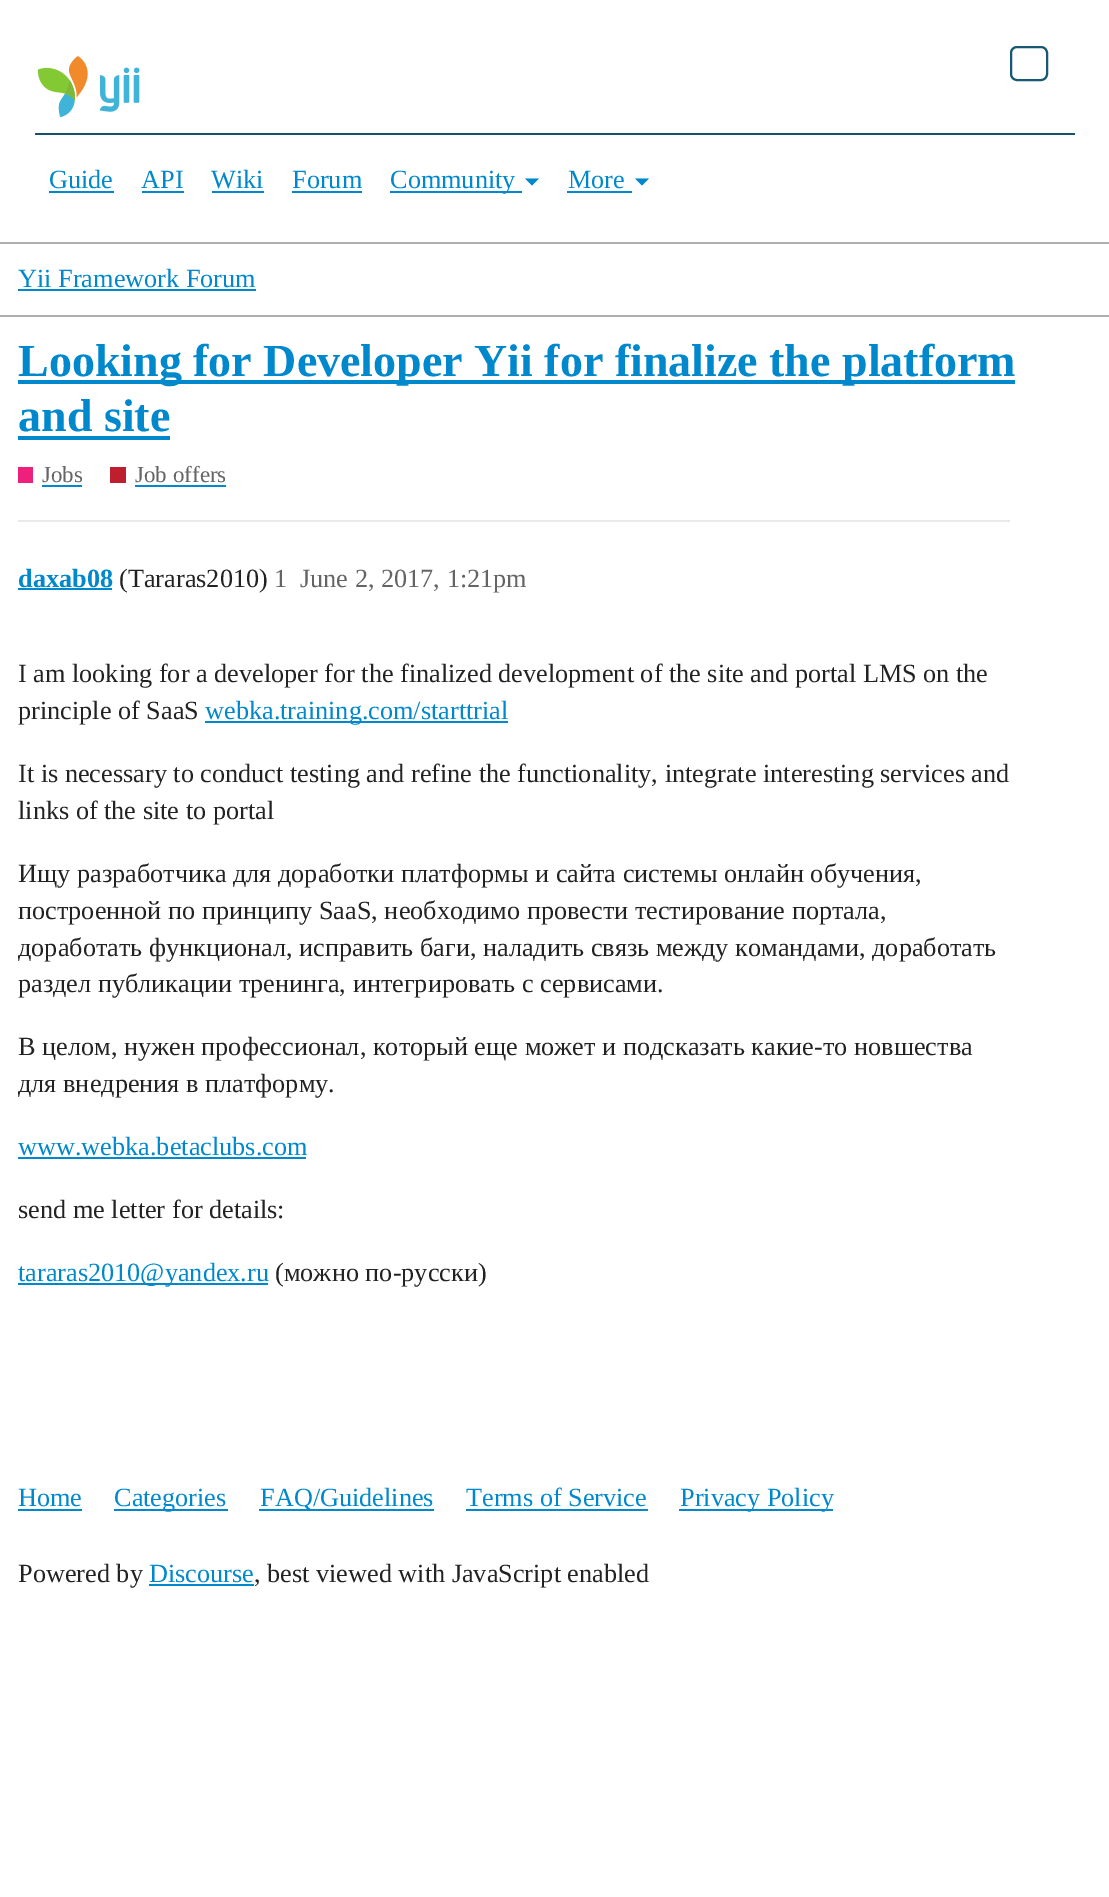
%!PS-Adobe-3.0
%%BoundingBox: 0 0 1109 1897
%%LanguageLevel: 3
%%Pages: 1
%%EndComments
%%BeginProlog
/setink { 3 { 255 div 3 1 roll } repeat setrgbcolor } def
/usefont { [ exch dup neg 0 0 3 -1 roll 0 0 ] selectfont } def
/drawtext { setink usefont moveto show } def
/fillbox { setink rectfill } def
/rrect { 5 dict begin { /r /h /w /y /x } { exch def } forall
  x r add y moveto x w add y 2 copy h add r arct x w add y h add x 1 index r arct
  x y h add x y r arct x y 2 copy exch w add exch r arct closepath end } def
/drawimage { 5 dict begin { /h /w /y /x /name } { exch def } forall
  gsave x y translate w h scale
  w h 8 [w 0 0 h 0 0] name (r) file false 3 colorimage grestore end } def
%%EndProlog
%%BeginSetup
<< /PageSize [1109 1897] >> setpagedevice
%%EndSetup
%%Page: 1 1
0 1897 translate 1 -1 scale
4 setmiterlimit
0 0 1109 1897 255 255 255 fillbox
0 242 1109 2 175 175 175 fillbox
(assets/img1.rgb) 37 56 103 61 drawimage
25 88 114 setink
2 setlinewidth
1011 47 36 33 6 rrect stroke
35 133 1040 2 24 81 106 fillbox
(Guide) 49 188 /LiberationSerif-Regular 26.25 0 136 204 drawtext
49 191 65 2 0 136 204 fillbox
(API) 141 188 /LiberationSerif-Regular 26.25 0 136 204 drawtext
142 191 42 2 0 136 204 fillbox
(Wiki) 211 188 /LiberationSerif-Regular 26.25 0 136 204 drawtext
212 191 52 2 0 136 204 fillbox
(Forum) 292 188 /LiberationSerif-Regular 26.25 0 136 204 drawtext
292 191 70 2 0 136 204 fillbox
390 191 132 2 0 136 204 fillbox
(Community) 390 188 /LiberationSerif-Regular 26.25 0 136 204 drawtext
525 178.5 moveto 539 178.5 lineto 532 185.5 lineto closepath fill
(More) 568 188 /LiberationSerif-Regular 26.25 0 136 204 drawtext
567 191 65 2 0 136 204 fillbox
635 178.5 moveto 649 178.5 lineto 642 185.5 lineto closepath fill
0 315 1109 2 175 175 175 fillbox
(Yii Framework Forum) 18 287 /LiberationSerif-Regular 26.25 0 136 204 drawtext
18 289 238 2 0 136 204 fillbox
18 380 997 4 0 136 204 fillbox
(Looking for Developer Yii for finalize the platform) 18 376 /LiberationSerif-Bold 46 0 136 204 drawtext
(and site) 18 431 /LiberationSerif-Bold 46 0 136 204 drawtext
18 436 152 4 0 136 204 fillbox
18 467 15 16 237 32 123 fillbox
(Jobs) 42 482 /LiberationSerif-Regular 23 100 100 100 drawtext
42 485 40 2 0 136 204 fillbox
110 467 16 16 191 30 46 fillbox
(Job offers) 135 482 /LiberationSerif-Regular 23 100 100 100 drawtext
135 485 91 2 0 136 204 fillbox
18 520 992 2 233 233 233 fillbox
(daxab08) 18 587 /LiberationSerif-Bold 26.25 0 136 204 drawtext
18 588 94 2 0 136 204 fillbox
(\(Tararas2010\)) 119 587 /LiberationSerif-Regular 26.25 34 34 34 drawtext
(1) 274 587 /LiberationSerif-Regular 26.25 100 100 100 drawtext
(June 2, 2017, 1:21pm) 300 587 /LiberationSerif-Regular 26.25 100 100 100 drawtext
(I am looking for a developer for the finalized development of the site and portal LMS on the) 18 682 /LiberationSerif-Regular 26.25 34 34 34 drawtext
(principle of SaaS) 18 719 /LiberationSerif-Regular 26.25 34 34 34 drawtext
205 721 303 2 0 136 204 fillbox
(webka.training.com/starttrial) 205 719 /LiberationSerif-Regular 26.25 0 136 204 drawtext
(It is necessary to conduct testing and refine the functionality, integrate interesting services and) 18 782 /LiberationSerif-Regular 26.25 34 34 34 drawtext
(links of the site to portal) 18 819 /LiberationSerif-Regular 26.25 34 34 34 drawtext
(Ищу разработчика для доработки платформы и сайта системы онлайн обучения,) 18 882 /LiberationSerif-Regular 26.25 34 34 34 drawtext
(построенной по принципу SaaS, необходимо провести тестирование портала,) 18 919 /LiberationSerif-Regular 26.25 34 34 34 drawtext
gsave
18 630 992 688 rectclip
(доработать функционал, исправить баги, наладить связь между командами, доработать) 18 956 /LiberationSerif-Regular 26.25 34 34 34 drawtext
grestore
(раздел публикации тренинга, интегрировать с сервисами.) 18 992 /LiberationSerif-Regular 26.25 34 34 34 drawtext
(В целом, нужен профессионал, который еще может и подсказать какие-то новшества) 18 1055 /LiberationSerif-Regular 26.25 34 34 34 drawtext
gsave
18 630 992 688 rectclip
(для внедрения в платформу.) 18 1092 /LiberationSerif-Regular 26.25 34 34 34 drawtext
grestore
(www.webka.betaclubs.com) 18 1155 /LiberationSerif-Regular 26.25 0 136 204 drawtext
18 1157 288 2 0 136 204 fillbox
(send me letter for details:) 18 1218 /LiberationSerif-Regular 26.25 34 34 34 drawtext
18 1283 250 2 0 136 204 fillbox
(tararas2010@yandex.ru) 18 1281 /LiberationSerif-Regular 26.25 0 136 204 drawtext
(\(можно по-русски\)) 275 1281 /LiberationSerif-Regular 26.25 34 34 34 drawtext
(Home) 18 1506 /LiberationSerif-Regular 26.25 0 136 204 drawtext
18 1509 64 2 0 136 204 fillbox
114 1509 114 2 0 136 204 fillbox
(Categories) 114 1506 /LiberationSerif-Regular 26.25 0 136 204 drawtext
259 1509 175 2 0 136 204 fillbox
(FAQ/Guidelines) 260 1506 /LiberationSerif-Regular 26.25 0 136 204 drawtext
(Terms of Service) 466 1506 /LiberationSerif-Regular 26.25 0 136 204 drawtext
466 1509 182 2 0 136 204 fillbox
679 1509 154 2 0 136 204 fillbox
(Privacy Policy) 680 1506 /LiberationSerif-Regular 26.25 0 136 204 drawtext
(Powered by) 18 1582 /LiberationSerif-Regular 26.25 34 34 34 drawtext
(Discourse) 149 1582 /LiberationSerif-Regular 26.25 0 136 204 drawtext
149 1584 105 2 0 136 204 fillbox
(, best viewed with JavaScript enabled) 254 1582 /LiberationSerif-Regular 26.25 34 34 34 drawtext
showpage
%%EOF
